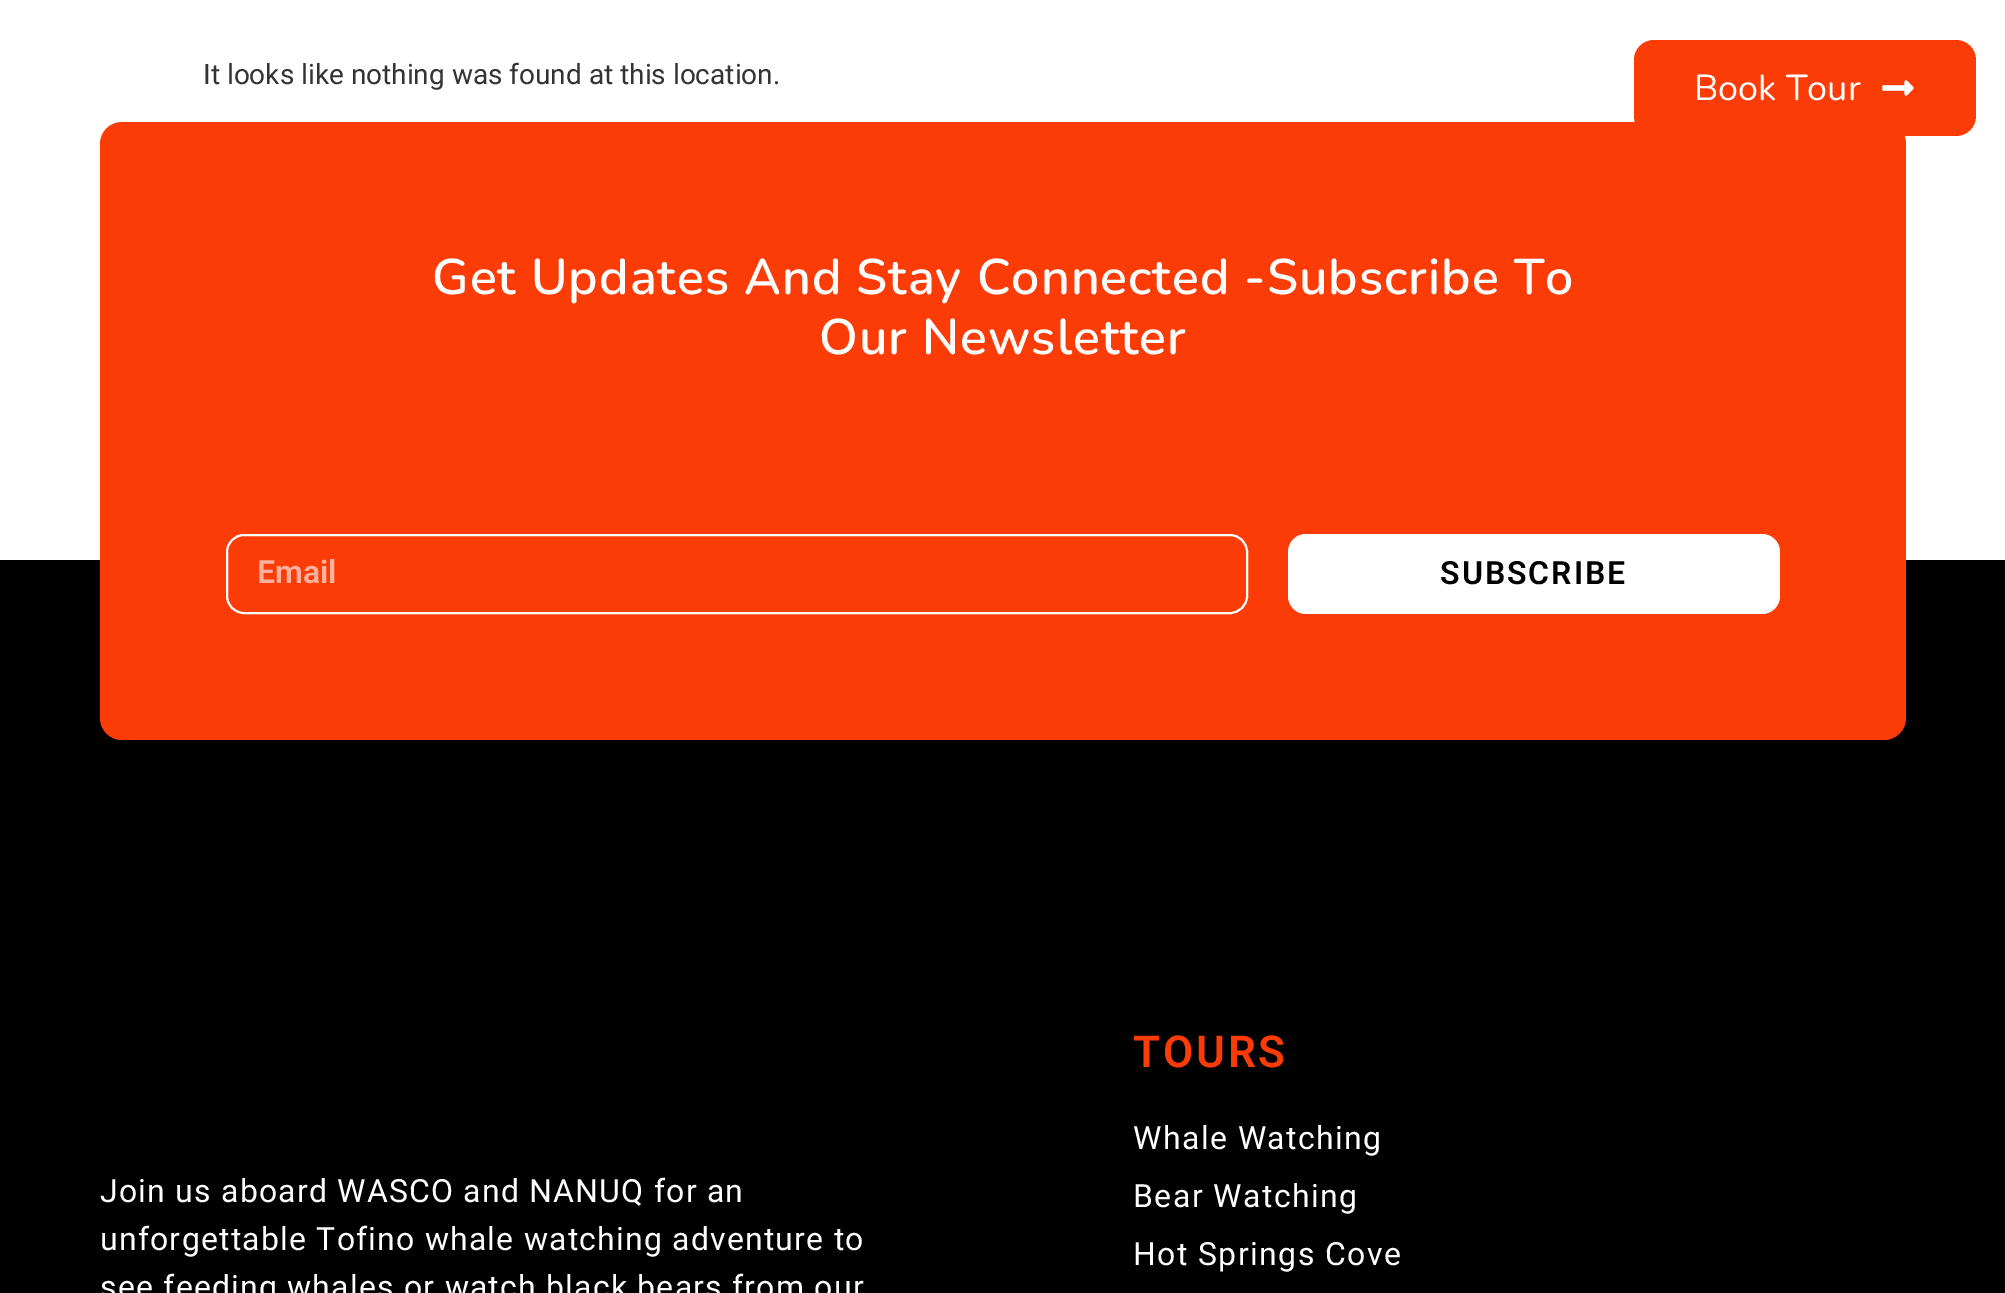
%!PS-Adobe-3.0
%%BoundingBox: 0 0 2005 1293
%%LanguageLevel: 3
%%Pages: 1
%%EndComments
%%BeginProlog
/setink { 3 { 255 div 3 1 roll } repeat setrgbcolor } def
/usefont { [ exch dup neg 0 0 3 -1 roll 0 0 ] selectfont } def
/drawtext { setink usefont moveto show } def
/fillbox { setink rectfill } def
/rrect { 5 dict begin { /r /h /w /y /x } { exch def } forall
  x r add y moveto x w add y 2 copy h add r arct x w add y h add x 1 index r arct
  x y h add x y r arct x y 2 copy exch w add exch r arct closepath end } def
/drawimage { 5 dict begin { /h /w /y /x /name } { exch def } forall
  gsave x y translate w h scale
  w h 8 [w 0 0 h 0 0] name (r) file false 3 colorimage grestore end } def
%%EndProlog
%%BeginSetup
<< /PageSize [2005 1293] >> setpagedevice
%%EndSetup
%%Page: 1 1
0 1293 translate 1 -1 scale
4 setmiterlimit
0 0 2005 1293 255 255 255 fillbox
(It looks like nothing was found at this location.) 203 84 /Roboto-Regular 28 51 51 51 drawtext
0 560 2005 733 0 0 0 fillbox
252 60 7 setink
100 122 1806 618 22 rrect fill
1634 40 342 96 20 rrect fill
(Book Tour) 1694 100 /Nunito-Regular 36 255 255 255 drawtext
(assets/img1.rgb) 1882 80 32 16 drawimage
/Nunito-SemiBold 50 usefont
432 294 moveto 1 0 (Get Updates And Stay Connected -Subscribe To) ashow
819 354 moveto 1 0 (Our Newsletter) ashow
2 setlinewidth
227 535 1020 78 17 rrect stroke
(Email) 257 583 /Roboto-SemiBold 32 254 177 156 drawtext
255 255 255 setink
1288 534 492 80 18 rrect fill
0 0 0 setink
1440 584 moveto 2 0 (SUBSCRIBE) ashow
/Roboto-Regular 32 usefont
255 255 255 setink
100 1202 moveto 1.2 0 (Join us aboard WASCO and NANUQ for an) ashow
100 1250 moveto 1.2 0 (unforgettable Tofino whale watching adventure to) ashow
100 1298 moveto 1.2 0 (see feeding whales or watch black bears from our) ashow
/Roboto-SemiBold 44 usefont
252 60 7 setink
1133 1067 moveto 2.75 0 (TOURS) ashow
/Roboto-Regular 32 usefont
255 255 255 setink
1133 1149 moveto 1.4 0 (Whale Watching) ashow
1133 1207 moveto 1.4 0 (Bear Watching) ashow
1133 1265 moveto 1.4 0 (Hot Springs Cove) ashow
showpage
%%EOF
